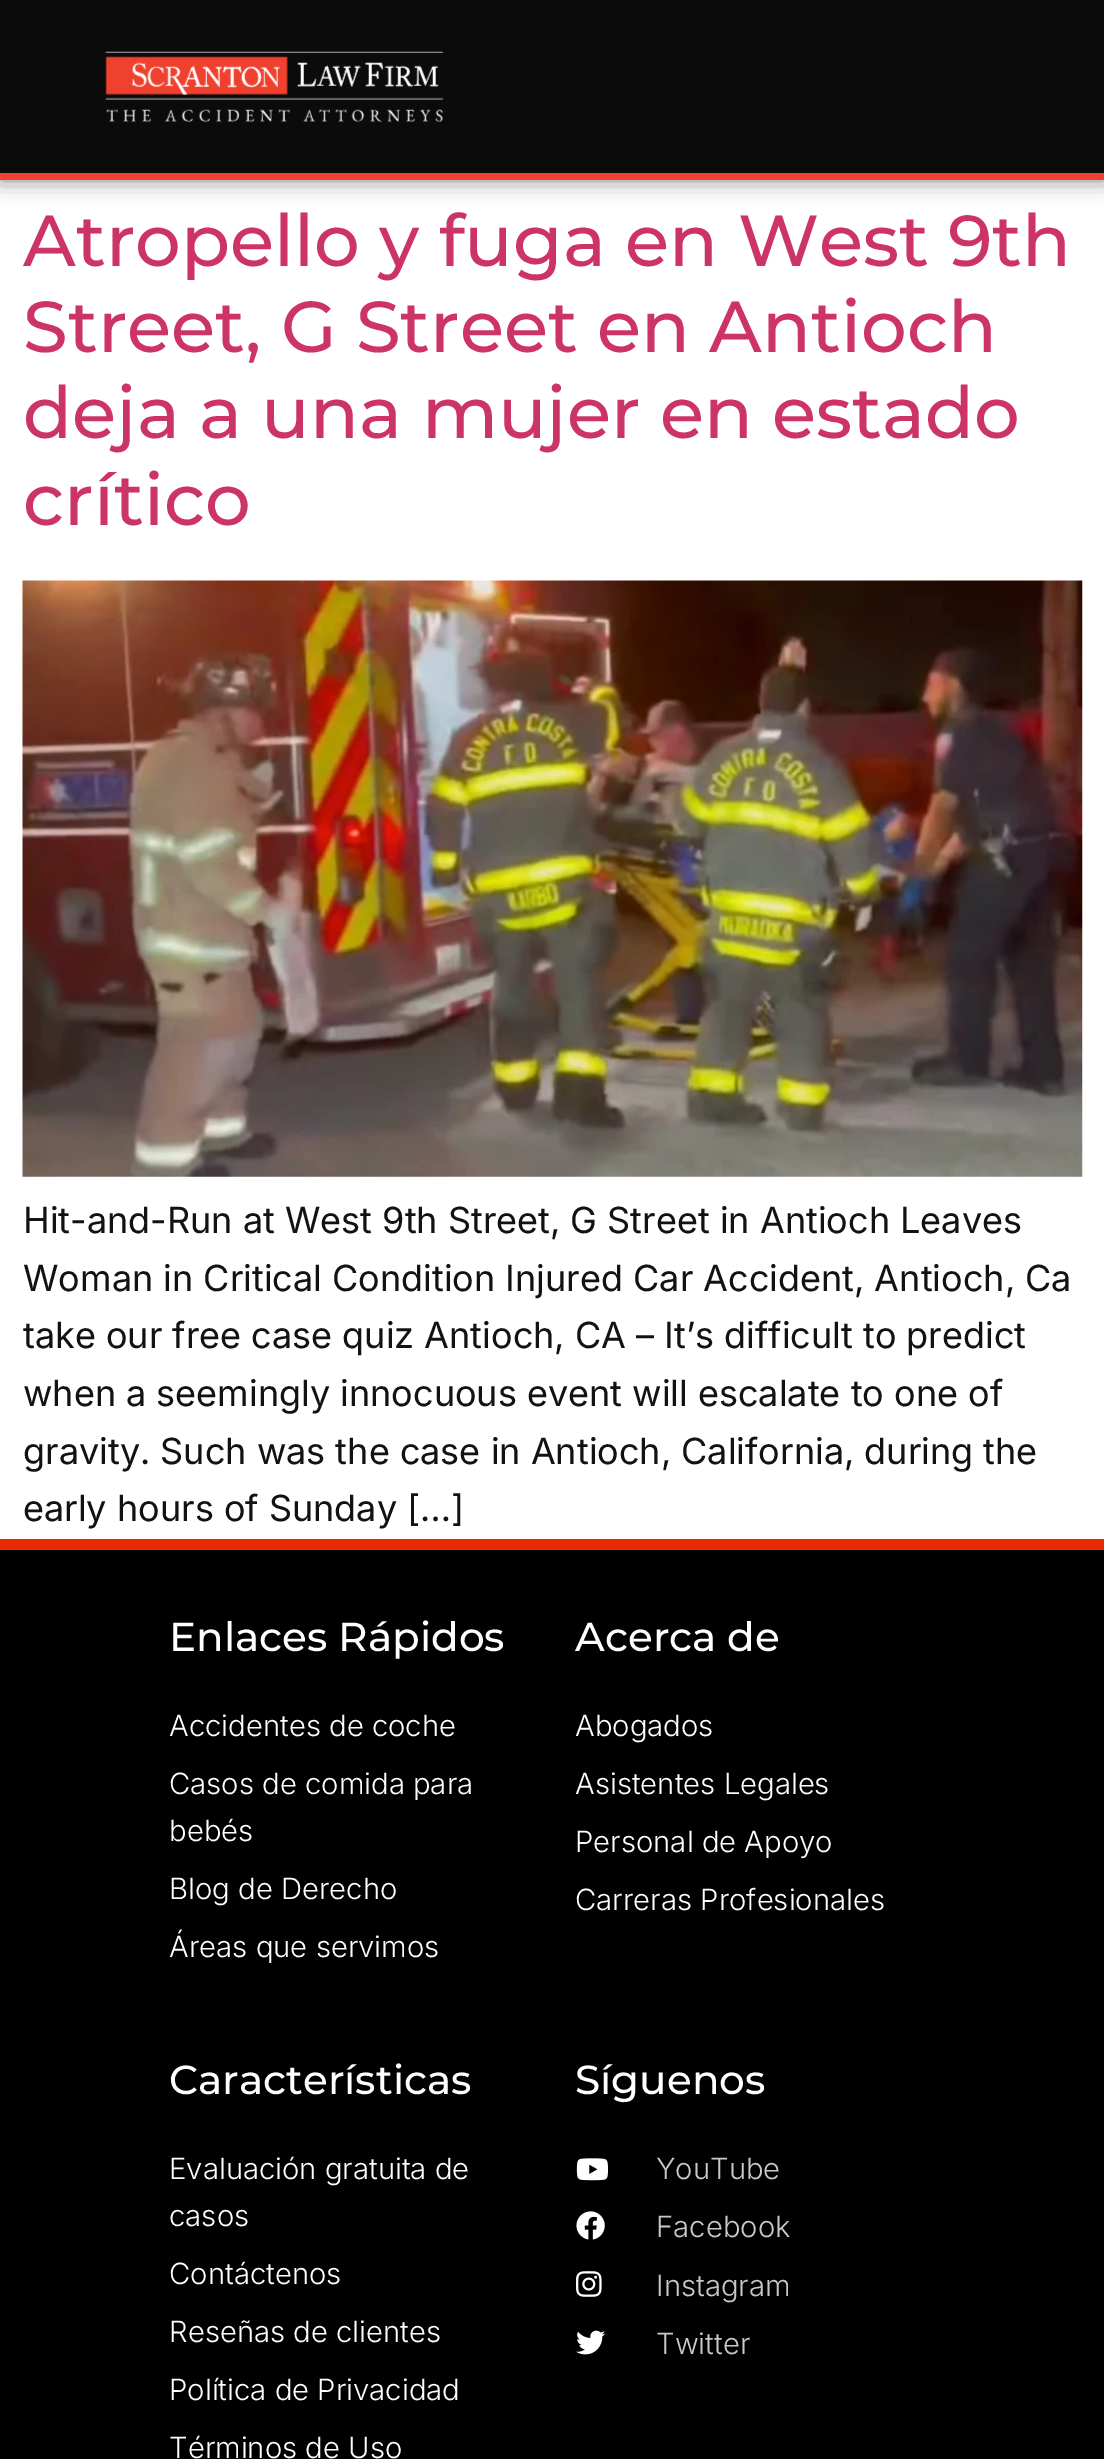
%!PS-Adobe-3.0
%%BoundingBox: 0 0 1104 2459
%%LanguageLevel: 3
%%Pages: 1
%%EndComments
%%BeginProlog
/setink { 3 { 255 div 3 1 roll } repeat setrgbcolor } def
/usefont { [ exch dup neg 0 0 3 -1 roll 0 0 ] selectfont } def
/drawtext { setink usefont moveto show } def
/fillbox { setink rectfill } def
/setalpha { dup .setfillconstantalpha .setstrokeconstantalpha } def
/rrect { 5 dict begin { /r /h /w /y /x } { exch def } forall
  x r add y moveto x w add y 2 copy h add r arct x w add y h add x 1 index r arct
  x y h add x y r arct x y 2 copy exch w add exch r arct closepath end } def
/softshadow { 12 dict begin { /a /b /q /h /w /y /x } { exch def } forall gsave /was 0 def
  9 -2 -9 { dup b mul 4 div /e exch def 1 sub .425 mul 2.718 exch exp 1 add a .99 .min exch div /now exch def
    1 1 now sub 1 was sub div sub setalpha /was now def
    w h .min e 2 mul add 0 gt { x e sub y e sub w e 2 mul add h e 2 mul add
      q e add b .6 mul add w h .min 2 div e add .min 0 .max rrect fill } if } for grestore end } def
/drawimage { 5 dict begin { /h /w /y /x /name } { exch def } forall
  gsave x y translate w h scale
  w h 8 [w 0 0 h 0 0] name (r) file false 3 colorimage grestore end } def
%%EndProlog
%%BeginSetup
<< /PageSize [1104 2459] /PageUsesTransparency true >> setpagedevice
%%EndSetup
%%Page: 1 1
0 .pushpdf14devicefilter
0 2459 translate 1 -1 scale
4 setmiterlimit
0 0 1104 2459 255 255 255 fillbox
0 0 0 setink
0 0 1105 180 0 11 0.5 softshadow
0 0 1104 173 11 11 11 fillbox
0 173 1104 7 239 65 46 fillbox
(assets/img1.rgb) 105 51 339 71 drawimage
(Atropello y fuga en West 9th) 23 266 /Montserrat-Medium 72 204 51 102 drawtext
(Street, G Street en Antioch) 23 352 /Montserrat-Medium 72 204 51 102 drawtext
(deja a una mujer en estado) 23 438 /Montserrat-Medium 72 204 51 102 drawtext
(crítico) 23 525 /Montserrat-Medium 72 204 51 102 drawtext
(assets/img2.rgb) 22 580 1061 597 drawimage
(Hit-and-Run at West 9th Street, G Street in Antioch Leaves) 23 1233 /Inter-Regular 36 18 18 18 drawtext
(Woman in Critical Condition Injured Car Accident, Antioch, Ca) 23 1291 /Inter-Regular 36 18 18 18 drawtext
(take our free case quiz Antioch, CA – It’s difficult to predict) 23 1348 /Inter-Regular 36 18 18 18 drawtext
(when a seemingly innocuous event will escalate to one of) 23 1406 /Inter-Regular 36 18 18 18 drawtext
(gravity. Such was the case in Antioch, California, during the) 23 1464 /Inter-Regular 36 18 18 18 drawtext
(early hours of Sunday […]) 23 1521 /Inter-Regular 36 18 18 18 drawtext
0 1550 1104 909 0 0 0 fillbox
0 1539 1104 11 232 42 0 fillbox
(Enlaces Rápidos) 169 1651 /Montserrat-Medium 40.5 255 255 255 drawtext
(Accidentes de coche) 169 1736 /Inter-Light 29.25 255 255 255 drawtext
(Casos de comida para) 169 1794 /Inter-Light 29.25 255 255 255 drawtext
(bebés) 169 1841 /Inter-Light 29.25 255 255 255 drawtext
(Blog de Derecho) 169 1899 /Inter-Light 29.25 255 255 255 drawtext
(Áreas que servimos) 169 1957 /Inter-Light 29.25 255 255 255 drawtext
(Acerca de) 575 1651 /Montserrat-Medium 40.5 255 255 255 drawtext
(Abogados) 575 1736 /Inter-Light 29.25 255 255 255 drawtext
(Asistentes Legales) 575 1794 /Inter-Light 29.25 255 255 255 drawtext
(Personal de Apoyo) 575 1852 /Inter-Light 29.25 255 255 255 drawtext
(Carreras Profesionales) 575 1910 /Inter-Light 29.25 255 255 255 drawtext
(Características) 169 2094 /Montserrat-Medium 40.5 255 255 255 drawtext
(Evaluación gratuita de) 169 2179 /Inter-Light 29.25 255 255 255 drawtext
(casos) 169 2226 /Inter-Light 29.25 255 255 255 drawtext
(Contáctenos) 169 2284 /Inter-Light 29.25 255 255 255 drawtext
(Reseñas de clientes) 169 2342 /Inter-Light 29.25 255 255 255 drawtext
(Política de Privacidad) 169 2400 /Inter-Light 29.25 255 255 255 drawtext
(Términos de Uso) 169 2458 /Inter-Light 29.25 255 255 255 drawtext
(Síguenos) 575 2094 /Montserrat-Medium 40.5 255 255 255 drawtext
(assets/img3.rgb) 576 2158 33 23 drawimage
(YouTube) 656 2179 /Inter-Light 29.25 201 201 201 drawtext
(assets/img4.rgb) 576 2211 29 29 drawimage
(Facebook) 656 2237 /Inter-Light 29.25 201 201 201 drawtext
(assets/img5.rgb) 576 2271 26 26 drawimage
(Instagram) 656 2296 /Inter-Light 29.25 201 201 201 drawtext
(assets/img6.rgb) 576 2330 30 25 drawimage
(Twitter) 656 2354 /Inter-Light 29.25 201 201 201 drawtext
.poppdf14devicefilter showpage
%%EOF
